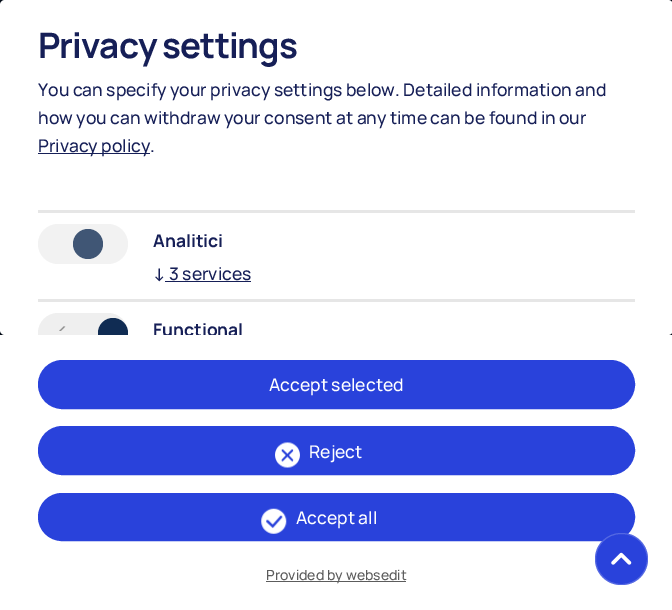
%!PS-Adobe-3.0
%%BoundingBox: 0 0 672 610
%%LanguageLevel: 3
%%Pages: 1
%%EndComments
%%BeginProlog
/setink { 3 { 255 div 3 1 roll } repeat setrgbcolor } def
/usefont { [ exch dup neg 0 0 3 -1 roll 0 0 ] selectfont } def
/drawtext { setink usefont moveto show } def
/fillbox { setink rectfill } def
/setalpha { dup .setfillconstantalpha .setstrokeconstantalpha } def
/disc { newpath 0 360 arc closepath } def
/rrect { 5 dict begin { /r /h /w /y /x } { exch def } forall
  x r add y moveto x w add y 2 copy h add r arct x w add y h add x 1 index r arct
  x y h add x y r arct x y 2 copy exch w add exch r arct closepath end } def
/drawimage { 5 dict begin { /h /w /y /x /name } { exch def } forall
  gsave x y translate w h scale
  w h 8 [w 0 0 h 0 0] name (r) file false 3 colorimage grestore end } def
%%EndProlog
%%BeginSetup
<< /PageSize [672 610] /PageUsesTransparency true >> setpagedevice
%%EndSetup
%%Page: 1 1
0 .pushpdf14devicefilter
0 610 translate 1 -1 scale
4 setmiterlimit
0 0 672 610 5 13 25 fillbox
255 255 255 setink
0 0 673 335 5 rrect fill
/Manrope-Bold 35 usefont
22 31 87 setink
38 58 moveto -1 0 (Privacy settings) ashow
(You can specify your privacy settings below. Detailed information and) 38 96 /Manrope-Medium 17.5 22 31 87 drawtext
(how you can withdraw your consent at any time can be found in our) 38 124 /Manrope-Medium 17.5 22 31 87 drawtext
38 153 112 1 22 31 87 fillbox
(Privacy policy.) 38 152 /Manrope-Medium 17.5 22 31 87 drawtext
38 210 597 3 230 230 230 fillbox
242 242 242 setink
38 224 90 40 20 rrect fill
64 86 117 setink
88 244 15 disc fill
(Analitici) 153 247 /Manrope-Bold 17.5 22 31 87 drawtext
(↓ 3 services) 153 280 /Manrope-Medium 17.5 22 31 87 drawtext
165 281 86 1 22 31 87 fillbox
38 299 597 3 230 230 230 fillbox
239 239 239 setink
38 313 90 40 20 rrect fill
gsave
38 313 90 40 20 rrect clip newpath
16 44 83 setink
113 333 15 disc fill
grestore
(assets/img1.rgb) 59 326 7 5 drawimage
(Functional) 153 336 /Manrope-Bold 17.5 22 31 87 drawtext
0 335 672 275 255 255 255 fillbox
41 66 219 setink
39.5 361.5 594 46 23 rrect gsave fill grestore
3 setlinewidth
stroke
(Accept selected) 269 391 /Manrope-Medium 17.5 255 255 255 drawtext
41 66 219 setink
39.5 427.5 594 46 23 rrect gsave fill grestore
stroke
(assets/img2.rgb) 275 442 25 26 drawimage
(Reject) 309 458 /Manrope-Medium 17.5 255 255 255 drawtext
41 66 219 setink
39.5 494.5 594 45 22.5 rrect gsave fill grestore
stroke
(assets/img3.rgb) 261 508 26 26 drawimage
(Accept all) 296 524 /Manrope-Medium 17.5 255 255 255 drawtext
266 581 140 1 92 92 92 fillbox
(Provided by websedit) 266 580 /Manrope-Medium 14 92 92 92 drawtext
41 66 219 setink
595 533 53 52 26 rrect fill
0.2 setalpha
255 255 255 setink
1 setlinewidth
595.5 533.5 52 51 25.5 rrect stroke
1 setalpha
(assets/img4.rgb) 611 552 21 13 drawimage
.poppdf14devicefilter showpage
%%EOF
